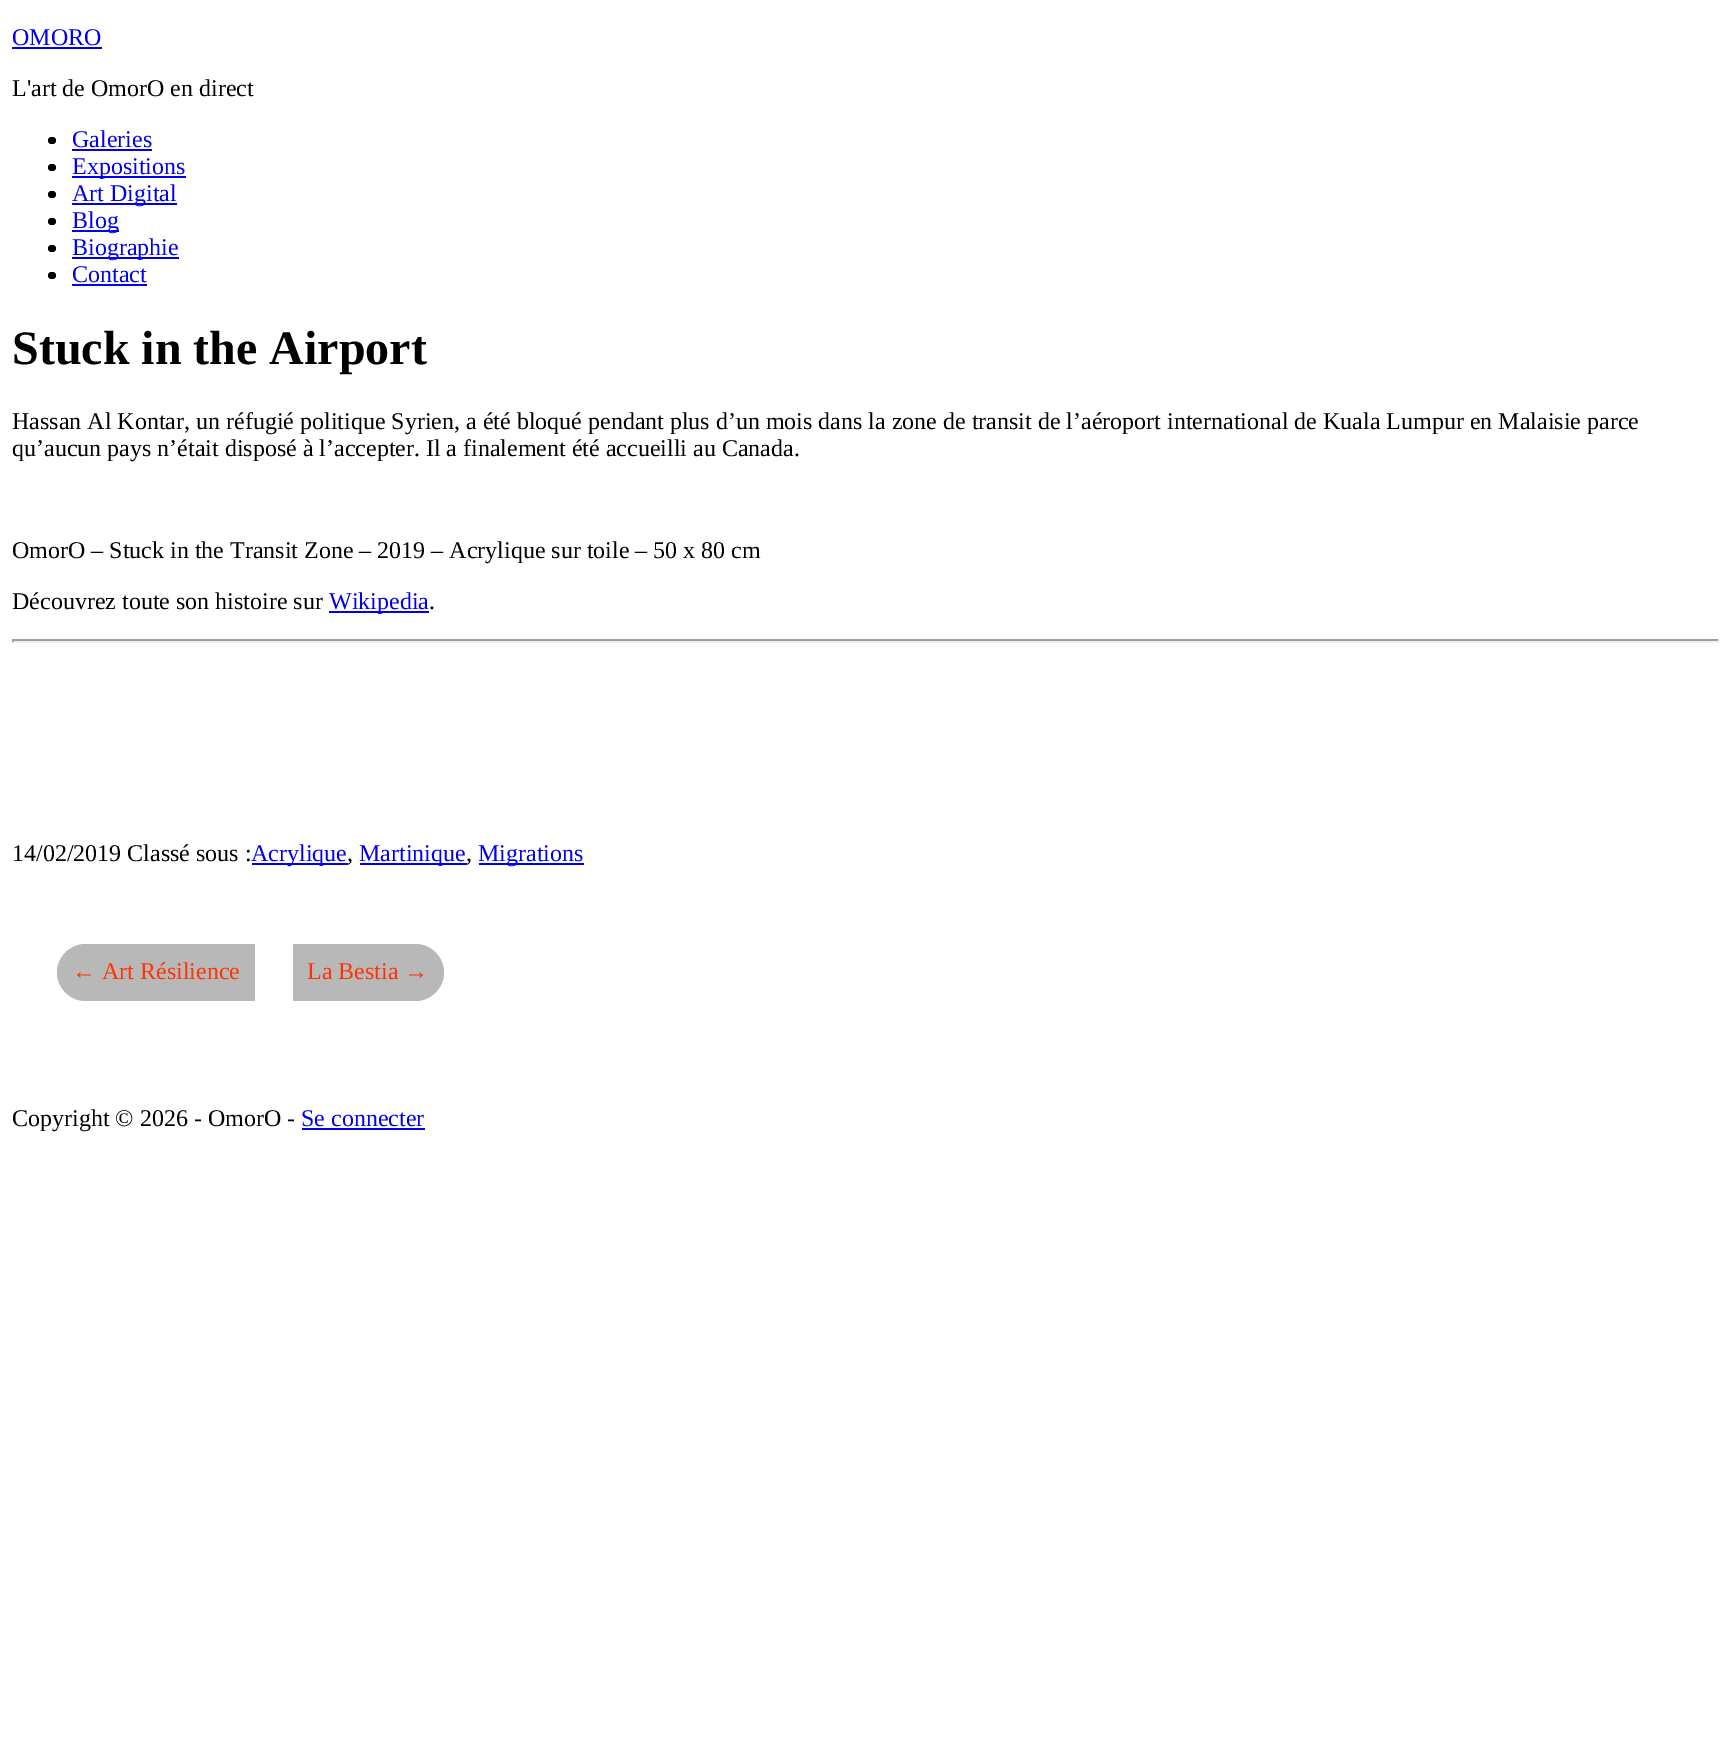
%!PS-Adobe-3.0
%%BoundingBox: 0 0 1730 1757
%%LanguageLevel: 3
%%Pages: 1
%%EndComments
%%BeginProlog
/setink { 3 { 255 div 3 1 roll } repeat setrgbcolor } def
/usefont { [ exch dup neg 0 0 3 -1 roll 0 0 ] selectfont } def
/drawtext { setink usefont moveto show } def
/fillbox { setink rectfill } def
/rrect { 5 dict begin { /r /h /w /y /x } { exch def } forall
  x r add y moveto x w add y 2 copy h add r arct x w add y h add x 1 index r arct
  x y h add x y r arct x y 2 copy exch w add exch r arct closepath end } def
%%EndProlog
%%BeginSetup
<< /PageSize [1730 1757] >> setpagedevice
%%EndSetup
%%Page: 1 1
0 1757 translate 1 -1 scale
4 setmiterlimit
0 0 1730 1757 255 255 255 fillbox
(OMORO) 12 45 /LiberationSerif-Regular 24 0 0 238 drawtext
12 47 90 2 0 0 238 fillbox
(L'art de OmorO en direct) 12 96 /LiberationSerif-Regular 24 0 0 0 drawtext
48 137 8 7 3.5 rrect fill
(Galeries) 72 147 /LiberationSerif-Regular 24 0 0 238 drawtext
72 149 80 2 0 0 238 fillbox
0 0 0 setink
48 164 8 7 3.5 rrect fill
72 176 114 2 0 0 238 fillbox
(Expositions) 72 174 /LiberationSerif-Regular 24 0 0 238 drawtext
0 0 0 setink
48 191 8 7 3.5 rrect fill
72 203 105 2 0 0 238 fillbox
(Art Digital) 72 201 /LiberationSerif-Regular 24 0 0 238 drawtext
0 0 0 setink
48 218 8 7 3.5 rrect fill
72 230 47 2 0 0 238 fillbox
(Blog) 72 228 /LiberationSerif-Regular 24 0 0 238 drawtext
0 0 0 setink
48 245 8 7 3.5 rrect fill
72 257 107 2 0 0 238 fillbox
(Biographie) 72 255 /LiberationSerif-Regular 24 0 0 238 drawtext
0 0 0 setink
48 272 8 7 3.5 rrect fill
(Contact) 72 282 /LiberationSerif-Regular 24 0 0 238 drawtext
72 284 75 2 0 0 238 fillbox
(Stuck in the Airport) 12 364 /LiberationSerif-Bold 48 0 0 0 drawtext
(Hassan Al Kontar, un réfugié politique Syrien, a été bloqué pendant plus d’un mois dans la zone de transit de l’aéroport international de Kuala Lumpur en Malaisie parce) 12 429 /LiberationSerif-Regular 24 0 0 0 drawtext
(qu’aucun pays n’était disposé à l’accepter. Il a finalement été accueilli au Canada.) 12 456 /LiberationSerif-Regular 24 0 0 0 drawtext
(OmorO – Stuck in the Transit Zone – 2019 – Acrylique sur toile – 50 x 80 cm) 12 558 /LiberationSerif-Regular 24 0 0 0 drawtext
(Découvrez toute son histoire sur) 12 609 /LiberationSerif-Regular 24 0 0 0 drawtext
329 611 100 2 0 0 238 fillbox
(Wikipedia) 329 609 /LiberationSerif-Regular 24 0 0 238 drawtext
(.) 429 609 /LiberationSerif-Regular 24 0 0 0 drawtext
12 639 1707 2 159 159 159 fillbox
1718 639 2 3 238 238 238 fillbox
12 641 1707 2 238 238 238 fillbox
12 639 2 3 159 159 159 fillbox
(14/02/2019 Classé sous :) 12 861 /LiberationSerif-Regular 24 0 0 0 drawtext
252 863 96 2 0 0 238 fillbox
(Acrylique) 251 861 /LiberationSerif-Regular 24 0 0 238 drawtext
(,) 347 861 /LiberationSerif-Regular 24 0 0 0 drawtext
360 863 107 2 0 0 238 fillbox
(Martinique) 359 861 /LiberationSerif-Regular 24 0 0 238 drawtext
(,) 466 861 /LiberationSerif-Regular 24 0 0 0 drawtext
479 863 105 2 0 0 238 fillbox
(Migrations) 478 861 /LiberationSerif-Regular 24 0 0 238 drawtext
184 184 184 setink
85.5 944 moveto 255 944 lineto 255 1001 lineto 85.5 1001 lineto 70 1001 57 988 57 972.5 curveto 57 957 70 944 85.5 944 curveto closepath fill
(← Art Résilience) 72 979 /LiberationSerif-Regular 24 255 51 0 drawtext
184 184 184 setink
293 944 moveto 415.5 944 lineto 431 944 444 957 444 972.5 curveto 444 988 431 1001 415.5 1001 curveto 293 1001 lineto closepath fill
(La Bestia →) 307 979 /LiberationSerif-Regular 24 255 51 0 drawtext
(Copyright © 2026 - OmorO -) 12 1126 /LiberationSerif-Regular 24 0 0 0 drawtext
(Se connecter) 301 1126 /LiberationSerif-Regular 24 0 0 238 drawtext
302 1128 123 2 0 0 238 fillbox
showpage
%%EOF
